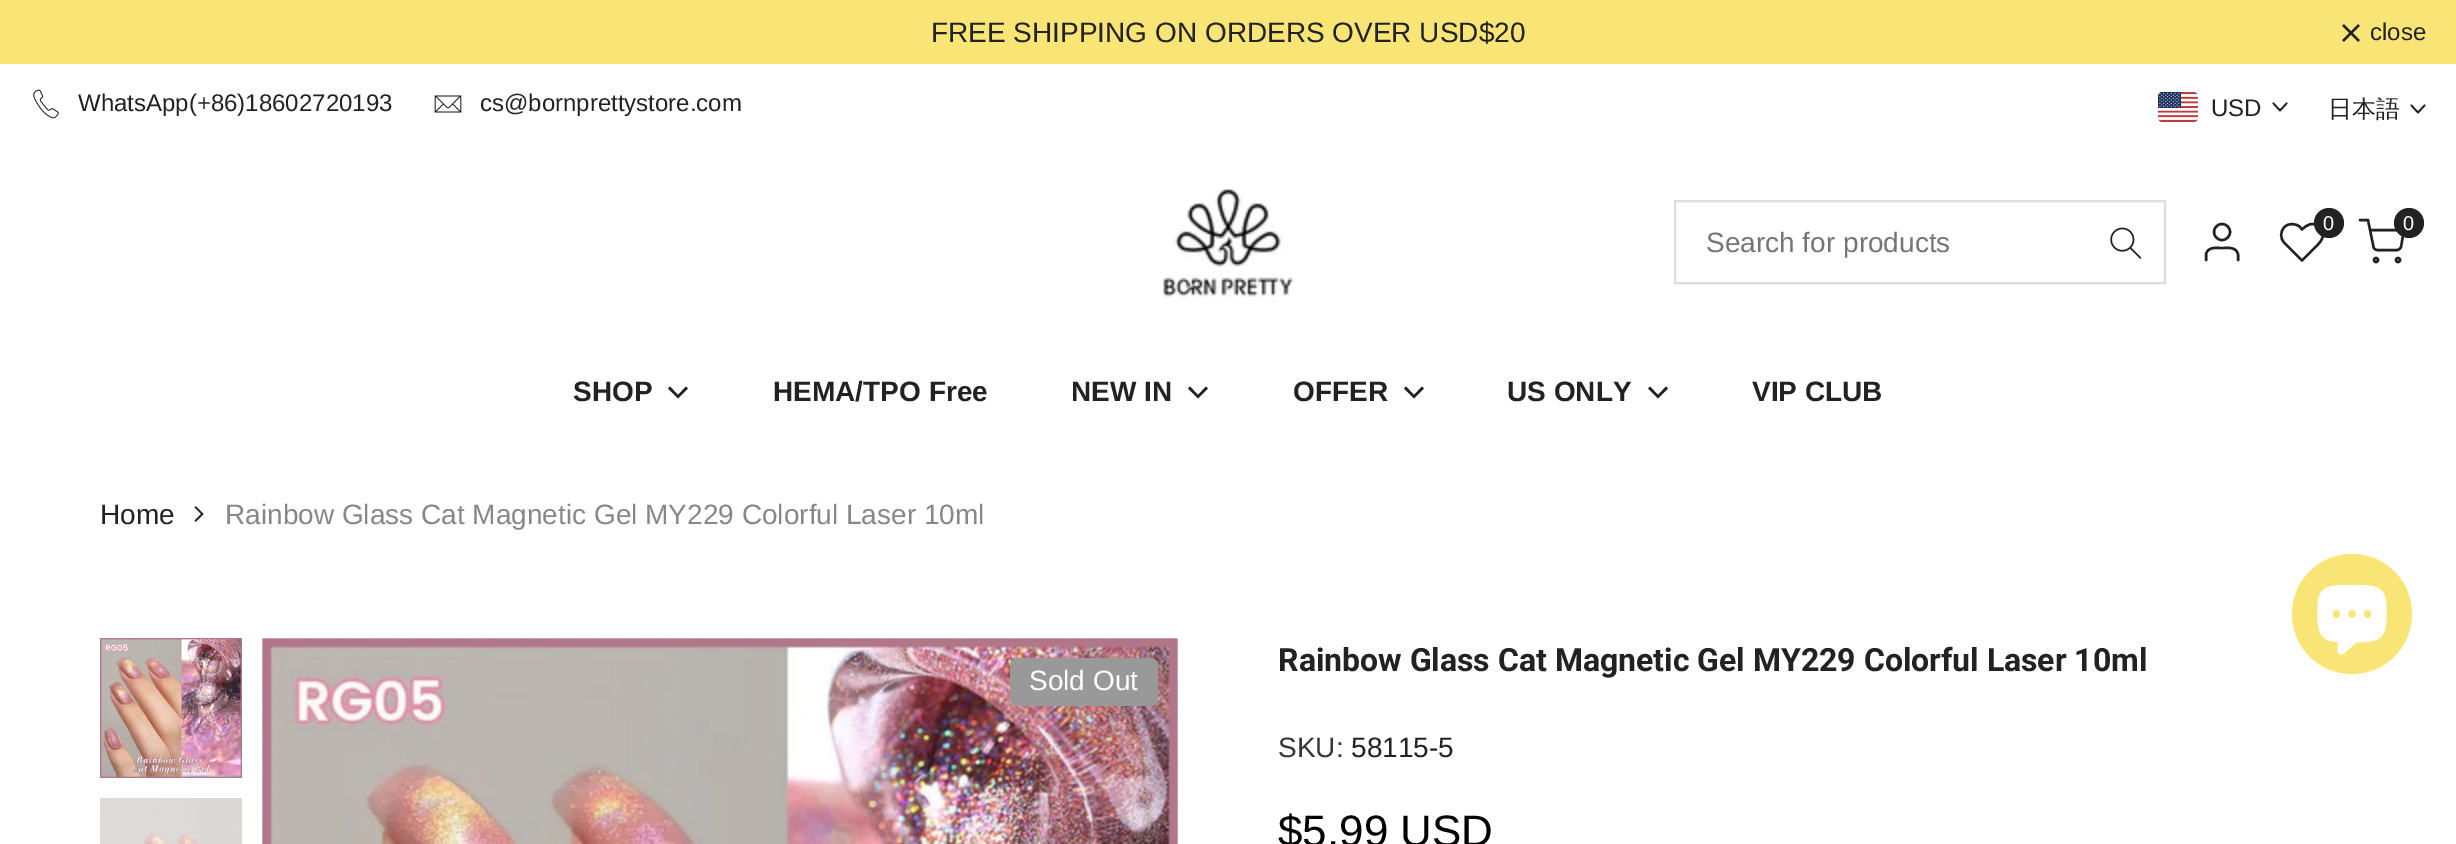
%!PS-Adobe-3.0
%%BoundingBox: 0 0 2456 844
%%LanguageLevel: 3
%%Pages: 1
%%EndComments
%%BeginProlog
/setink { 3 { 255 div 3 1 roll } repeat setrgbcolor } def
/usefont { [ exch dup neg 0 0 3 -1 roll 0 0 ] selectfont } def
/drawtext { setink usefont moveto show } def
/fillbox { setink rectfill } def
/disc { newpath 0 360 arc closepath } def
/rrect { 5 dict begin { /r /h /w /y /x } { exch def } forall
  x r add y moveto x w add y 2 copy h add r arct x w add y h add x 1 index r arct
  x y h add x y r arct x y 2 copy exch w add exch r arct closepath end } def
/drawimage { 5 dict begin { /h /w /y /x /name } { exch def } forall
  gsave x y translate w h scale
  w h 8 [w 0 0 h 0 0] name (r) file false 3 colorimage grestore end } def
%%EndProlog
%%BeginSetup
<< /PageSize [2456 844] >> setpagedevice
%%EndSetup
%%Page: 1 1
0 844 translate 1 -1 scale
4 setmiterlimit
0 0 2456 844 255 255 255 fillbox
0 0 2456 64 249 229 118 fillbox
(FREE SHIPPING ON ORDERS OVER USD$20) 931 42 /LiberationSans-Regular 28 34 34 34 drawtext
2.2 setlinewidth
2359 25 moveto 2343 41 lineto 2359 41 moveto 2343 25 lineto stroke
(close) 2370 40 /LiberationSans-Regular 24 34 34 34 drawtext
(assets/img1.rgb) 33 89 26 30 drawimage
(WhatsApp\(+86\)18602720193) 78 111 /LiberationSans-Regular 24 34 34 34 drawtext
(assets/img2.rgb) 434 95 28 18 drawimage
(cs@bornprettystore.com) 480 111 /LiberationSans-Regular 24 34 34 34 drawtext
(assets/img3.rgb) 2158 92 40 30 drawimage
(USD) 2211 116 /LiberationSans-Regular 24 34 34 34 drawtext
1.7 setlinewidth
2 setlinecap
2286.5 103.5 moveto 2280 110.5 lineto 2273.5 103.5 lineto stroke
(日本語) 2328 117 /WenQuanYiZenHei-Medium 24 34 34 34 drawtext
2424.5 105.5 moveto 2418 112.5 lineto 2411.5 105.5 lineto stroke
(assets/img4.rgb) 1163 188 130 110 drawimage
221 221 221 setink
2 setlinewidth
0 setlinecap
1675 201 490 82 rectstroke
(Search for products) 1706 252 /LiberationSans-Regular 28 117 117 117 drawtext
(assets/img5.rgb) 2110 227 32 32 drawimage
34 34 34 setink
2.4 setlinewidth
1 setlinecap
1 setlinejoin
2238 260 moveto 2238 254.5 lineto 2236.5 246.5 2228 248 2222 248 curveto 2216 248 2207.5 246.5 2206 254.5 curveto 2206 260 lineto stroke
0 setlinecap
0 setlinejoin
2222 232 8 disc stroke
1 setlinecap
1 setlinejoin
2319.5 227 moveto 2313.5 221 2307 224.5 2302 229.5 curveto 2300 227 lineto 2295.5 223 2288.5 223 2284.5 227 curveto 2280 231.5 2280 238.5 2284.5 243 curveto 2302 260.5 lineto 2312.5 250 lineto 2318.5 244 2328.5 236 2319.5 227 curveto closepath stroke
2329 223 15 disc fill
(0) 2323 230 /LiberationSans-Regular 20 255 255 255 drawtext
34 34 34 setink
0 setlinecap
0 setlinejoin
2376 260 2 disc stroke
2398 260 2 disc stroke
1 setlinecap
1 setlinejoin
2360 220 moveto 2368 220 lineto 2373.5 247 lineto 2373.5 248.5 2375.5 250 2377.5 250 curveto 2397 250 lineto 2398.5 250 2400.5 248.5 2401 247 curveto 2404 230 lineto 2370 230 lineto stroke
2409 223 15 disc fill
(0) 2403 230 /LiberationSans-Regular 20 255 255 255 drawtext
(SHOP) 573 401 /LiberationSans-Bold 28 34 34 34 drawtext
688 388.5 moveto 678 398.5 lineto 668 388.5 lineto 670 386.5 lineto 678 395 lineto 686 386.5 lineto closepath fill
(HEMA/TPO Free) 773 401 /LiberationSans-Bold 28 34 34 34 drawtext
(NEW IN) 1071 401 /LiberationSans-Bold 28 34 34 34 drawtext
1208 388.5 moveto 1198 398.5 lineto 1188 388.5 lineto 1190 386.5 lineto 1198 395 lineto 1206 386.5 lineto closepath fill
(OFFER) 1293 401 /LiberationSans-Bold 28 34 34 34 drawtext
1424 388.5 moveto 1414 398.5 lineto 1404 388.5 lineto 1406 386.5 lineto 1414 395 lineto 1422 386.5 lineto closepath fill
(US ONLY) 1507 401 /LiberationSans-Bold 28 34 34 34 drawtext
1668 388.5 moveto 1658 398.5 lineto 1648 388.5 lineto 1650 386.5 lineto 1658 395 lineto 1666 386.5 lineto closepath fill
(VIP CLUB) 1752 401 /LiberationSans-Bold 28 34 34 34 drawtext
(Home) 100 524 /LiberationSans-Regular 28 34 34 34 drawtext
(assets/img6.rgb) 194 506 10 16 drawimage
(Rainbow Glass Cat Magnetic Gel MY229 Colorful Laser 10ml) 225 524 /LiberationSans-Regular 28 135 135 135 drawtext
(assets/img7.rgb) 100 638 142 140 drawimage
(assets/img8.rgb) 100 798 142 46 drawimage
(assets/img9.rgb) 262 638 916 206 drawimage
153 153 153 setink
1010 658 148 48 8 rrect fill
(Sold Out) 1029 690 /LiberationSans-Regular 28 255 255 255 drawtext
(Rainbow Glass Cat Magnetic Gel MY229 Colorful Laser 10ml) 1278 671 /Roboto-Bold 32 34 34 34 drawtext
(SKU:) 1278 757 /LiberationSans-Regular 28 56 53 53 drawtext
(58115-5) 1351 757 /LiberationSans-Regular 28 34 34 34 drawtext
($5.99 USD) 1278 846 /LiberationSans-Regular 44 0 0 0 drawtext
249 229 118 setink
2352 614 60 disc fill
(assets/img10.rgb) 2317 585 70 70 drawimage
showpage
%%EOF
